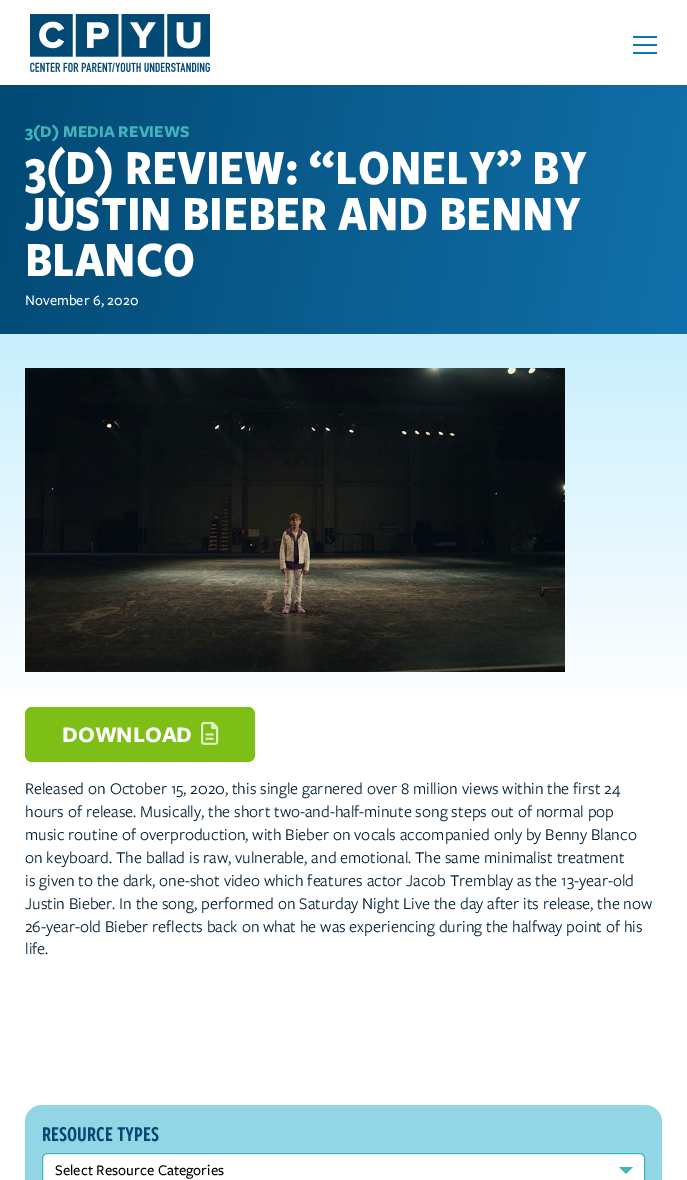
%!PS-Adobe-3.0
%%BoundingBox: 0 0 687 1180
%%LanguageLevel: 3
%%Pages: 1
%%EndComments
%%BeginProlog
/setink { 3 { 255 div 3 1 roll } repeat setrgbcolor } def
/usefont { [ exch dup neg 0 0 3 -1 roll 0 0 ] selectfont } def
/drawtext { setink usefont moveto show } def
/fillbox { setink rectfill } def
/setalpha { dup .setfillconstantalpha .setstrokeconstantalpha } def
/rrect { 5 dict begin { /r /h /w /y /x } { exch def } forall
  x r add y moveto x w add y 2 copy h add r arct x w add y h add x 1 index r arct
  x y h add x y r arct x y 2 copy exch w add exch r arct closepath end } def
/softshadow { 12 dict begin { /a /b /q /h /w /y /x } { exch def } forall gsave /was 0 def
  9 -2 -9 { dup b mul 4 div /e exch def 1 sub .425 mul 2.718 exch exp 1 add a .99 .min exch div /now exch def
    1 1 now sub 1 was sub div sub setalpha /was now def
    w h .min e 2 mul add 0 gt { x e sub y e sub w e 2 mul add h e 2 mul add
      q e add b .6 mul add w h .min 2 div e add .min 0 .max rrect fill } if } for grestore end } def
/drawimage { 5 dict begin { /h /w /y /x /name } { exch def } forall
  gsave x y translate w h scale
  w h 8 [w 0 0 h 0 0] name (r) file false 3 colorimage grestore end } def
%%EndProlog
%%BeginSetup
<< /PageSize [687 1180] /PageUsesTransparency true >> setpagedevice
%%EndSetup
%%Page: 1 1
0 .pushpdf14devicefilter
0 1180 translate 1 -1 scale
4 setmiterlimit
0 0 687 1180 255 255 255 fillbox
gsave 0 85 moveto 687 85 lineto 687 334 lineto 0 334 lineto closepath clip newpath
<< /ShadingType 2 /ColorSpace /DeviceRGB /Coords [-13 130 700 269] /Extend [true true] /Function << /FunctionType 2 /Domain [0 1] /C0 [0.008 0.286 0.455] /C1 [0.067 0.439 0.667] /N 1 >> >> shfill grestore
3 42 69 setink
0 2 687 85 0 2 0.08 softshadow
0 0 687 85 255 255 255 fillbox
(assets/img1.rgb) 30 14 180 58 drawimage
633 36 24 2 16 118 181 fillbox
633 44 24 2 16 118 181 fillbox
633 52 24 2 16 118 181 fillbox
(3\(D\) MEDIA REVIEWS) 25 137 /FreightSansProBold-Bold 17 66 181 186 drawtext
(3\(D\) REVIEW: “LONELY” BY) 25 184 /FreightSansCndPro-Bold 51 255 255 255 drawtext
(JUSTIN BIEBER AND BENNY) 25 230 /FreightSansCndPro-Bold 51 255 255 255 drawtext
(BLANCO) 25 276 /FreightSansCndPro-Bold 51 255 255 255 drawtext
(November 6, 2020) 25 305 /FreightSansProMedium-Medium 15 255 255 255 drawtext
gsave 0 334 moveto 687 334 lineto 687 697 lineto 0 697 lineto closepath clip newpath
<< /ShadingType 2 /ColorSpace /DeviceRGB /Coords [344 334 344 714] /Extend [true true] /Function << /FunctionType 2 /Domain [0 1] /C0 [0.784 0.937 0.988] /C1 [1 1 1] /N 1 >> >> shfill grestore
(assets/img2.rgb) 25 368 540 304 drawimage
126 191 23 setink
25 707 230 55 7 rrect fill
(DOWNLOAD) 62 742 /FreightSansProBold-Bold 23 255 255 255 drawtext
(assets/img3.rgb) 201 721 18 24 drawimage
(Released on October 15, 2020, this single garnered over 8 million views within the first 24) 25 794 /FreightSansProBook-Regular 17 2 31 51 drawtext
(hours of release. Musically, the short two-and-half-minute song steps out of normal pop) 25 817 /FreightSansProBook-Regular 17 2 31 51 drawtext
(music routine of overproduction, with Bieber on vocals accompanied only by Benny Blanco) 25 840 /FreightSansProBook-Regular 17 2 31 51 drawtext
(on keyboard. The ballad is raw, vulnerable, and emotional. The same minimalist treatment) 25 863 /FreightSansProBook-Regular 17 2 31 51 drawtext
(is given to the dark, one-shot video which features actor Jacob Tremblay as the 13-year-old) 25 886 /FreightSansProBook-Regular 17 2 31 51 drawtext
(Justin Bieber. In the song, performed on Saturday Night Live the day after its release, the now) 25 909 /FreightSansProBook-Regular 17 2 31 51 drawtext
(26-year-old Bieber reflects back on what he was experiencing during the halfway point of his) 25 932 /FreightSansProBook-Regular 17 2 31 51 drawtext
(life.) 25 954 /FreightSansProBook-Regular 17 2 31 51 drawtext
146 214 230 setink
25 1105 637 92 17 rrect fill
(RESOURCE TYPES) 42 1141 /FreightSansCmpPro-SemiBold 22 2 73 116 drawtext
255 255 255 setink
42.5 1153.5 602 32 4.5 rrect gsave fill grestore
66 181 186 setink
stroke
(Select Resource Categories) 55 1175 /FreightSansProMedium-Medium 15.25 0 0 0 drawtext
66 181 186 setink
619 1167 moveto 633 1167 lineto 626 1174 lineto closepath fill
.poppdf14devicefilter showpage
%%EOF
